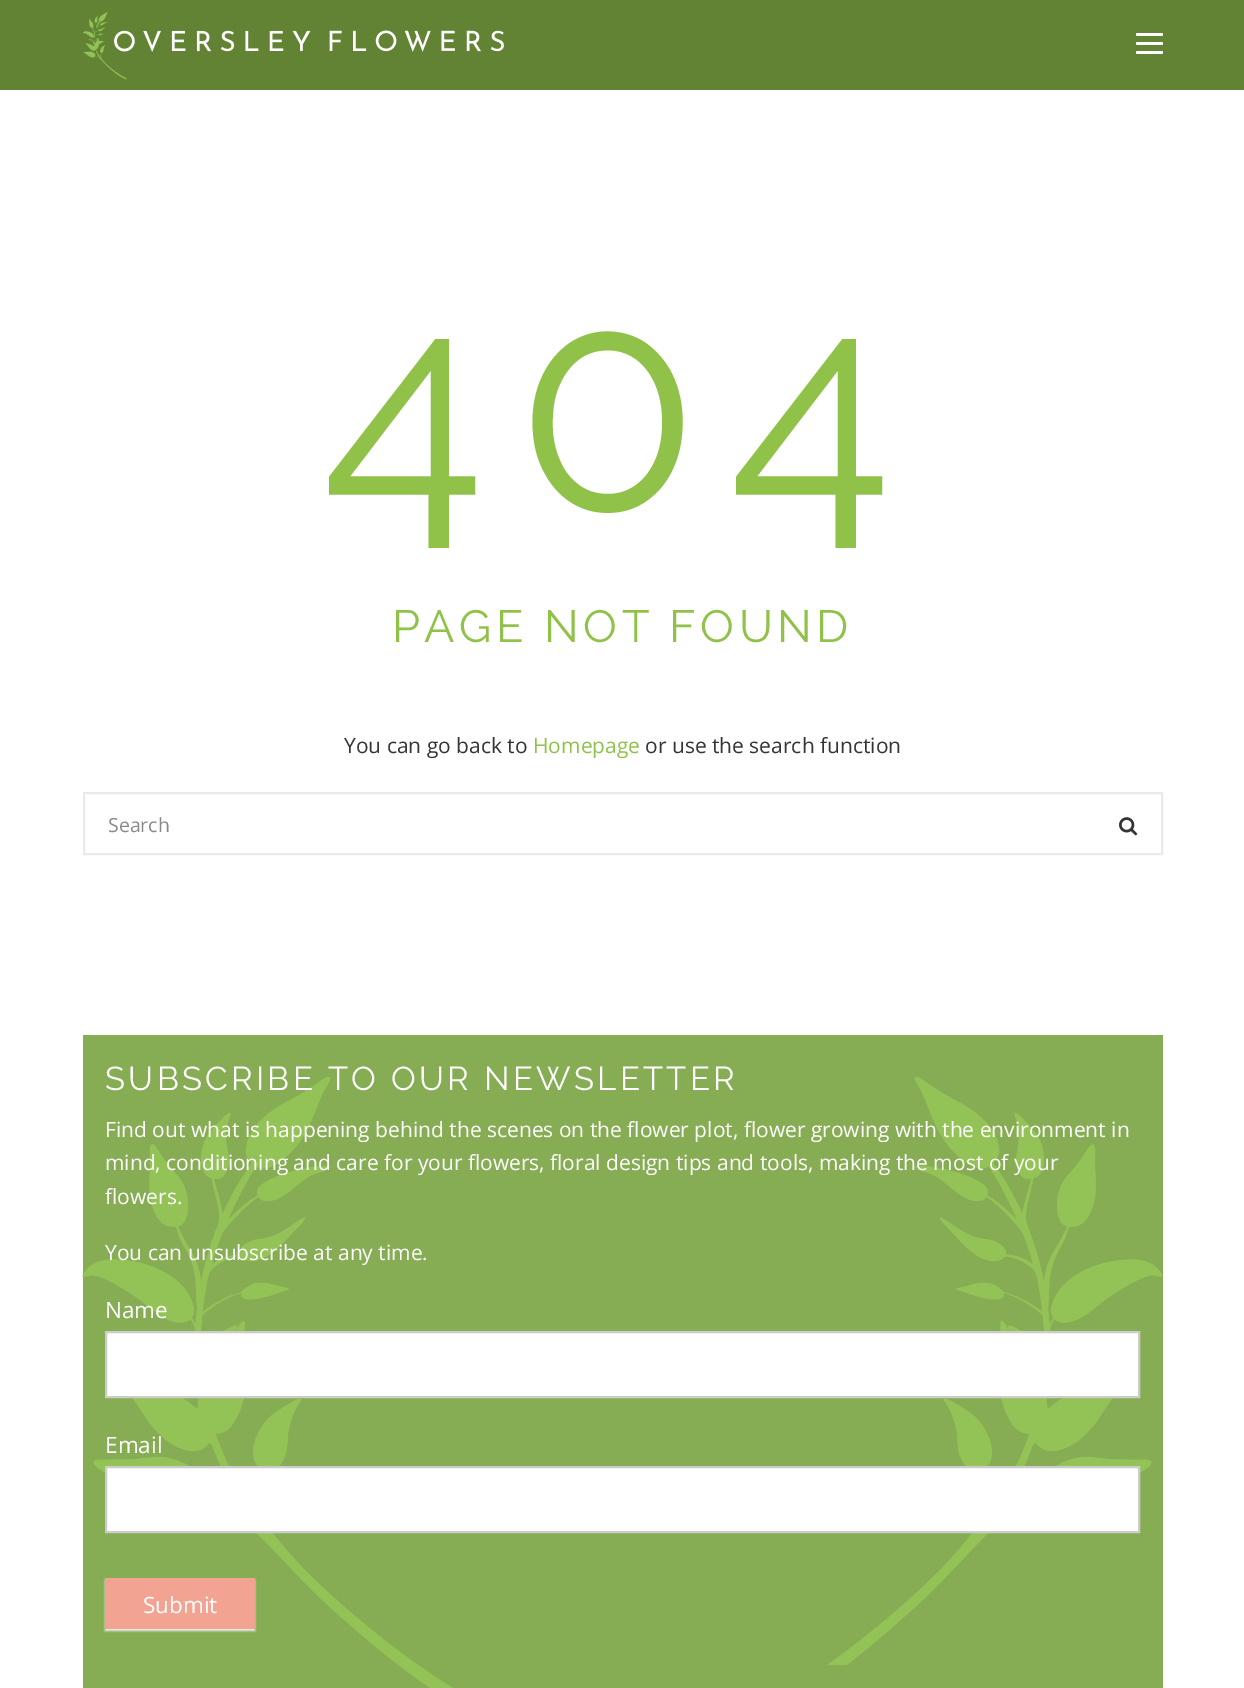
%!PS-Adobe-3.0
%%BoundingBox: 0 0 1244 1688
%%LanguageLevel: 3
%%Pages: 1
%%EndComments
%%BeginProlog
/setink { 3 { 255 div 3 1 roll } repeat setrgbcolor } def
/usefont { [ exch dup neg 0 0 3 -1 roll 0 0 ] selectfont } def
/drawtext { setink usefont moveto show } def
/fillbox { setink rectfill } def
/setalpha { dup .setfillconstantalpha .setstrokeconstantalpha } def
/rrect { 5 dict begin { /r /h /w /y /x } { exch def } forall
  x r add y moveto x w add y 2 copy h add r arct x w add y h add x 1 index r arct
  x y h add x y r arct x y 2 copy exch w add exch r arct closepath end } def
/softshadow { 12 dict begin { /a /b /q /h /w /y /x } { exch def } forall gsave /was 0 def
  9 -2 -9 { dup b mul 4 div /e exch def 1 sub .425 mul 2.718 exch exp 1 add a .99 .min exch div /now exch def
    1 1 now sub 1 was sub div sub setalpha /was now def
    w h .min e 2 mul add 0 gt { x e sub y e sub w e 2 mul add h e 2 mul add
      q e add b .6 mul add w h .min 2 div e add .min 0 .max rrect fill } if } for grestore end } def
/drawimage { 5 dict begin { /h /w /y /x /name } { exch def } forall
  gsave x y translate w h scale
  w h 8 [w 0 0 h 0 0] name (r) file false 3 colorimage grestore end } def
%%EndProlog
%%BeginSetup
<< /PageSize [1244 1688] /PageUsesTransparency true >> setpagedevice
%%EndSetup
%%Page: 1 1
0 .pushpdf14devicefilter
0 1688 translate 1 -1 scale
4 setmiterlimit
0 0 1244 1688 255 255 255 fillbox
0 0 1244 90 98 131 52 fillbox
(assets/img1.rgb) 83 12 421 68 drawimage
255 255 255 setink
1136 33 27 3 1.5 rrect fill
1136 42 27 3 1.5 rrect fill
1136 51 27 3 1.5 rrect fill
/Raleway-Regular 300 usefont
144 194 73 setink
322 510 moveto 30 0 (404) ashow
/Raleway-Regular 45 usefont
392 642 moveto 4.5 0 (PAGE NOT FOUND) ashow
(You can go back to) 344 753 /OpenSans-Regular 21 52 52 52 drawtext
(Homepage) 533 753 /OpenSans-Regular 21 144 194 73 drawtext
(or use the search function) 645 753 /OpenSans-Regular 21 52 52 52 drawtext
234 234 234 setink
2 setlinewidth
84 793 1078 61 rectstroke
(Search) 108 832 /OpenSans-Regular 19.5 137 137 137 drawtext
(assets/img2.rgb) 1119 817 19 19 drawimage
83 1035 1080 653 134 172 84 fillbox
(assets/img3.rgb) 82 1077 1081 611 drawimage
/Raleway-Regular 33 usefont
255 255 255 setink
105 1090 moveto 3.3 0 (SUBSCRIBE TO OUR NEWSLETTER) ashow
(Find out what is happening behind the scenes on the flower plot, flower growing with the environment in) 105 1137 /OpenSans-Regular 21 255 255 255 drawtext
(mind, conditioning and care for your flowers, floral design tips and tools, making the most of your) 105 1170 /OpenSans-Regular 21 255 255 255 drawtext
(flowers.) 105 1204 /OpenSans-Regular 21 255 255 255 drawtext
(You can unsubscribe at any time.) 105 1260 /OpenSans-Regular 21 255 255 255 drawtext
(Name) 105 1318 /OpenSans-Regular 22.5 255 255 255 drawtext
106 1332 moveto 1139 1332 lineto 1139 1397 lineto 106 1397 lineto closepath gsave fill grestore
204 204 204 setink
stroke
(Email) 105 1453 /OpenSans-Regular 22.5 255 255 255 drawtext
106 1467 moveto 1139 1467 lineto 1139 1532 lineto 106 1532 lineto closepath gsave fill grestore
204 204 204 setink
stroke
238 238 238 setink
105 1580 150 51 0 1 1 softshadow
105 1578 150 51 242 163 146 fillbox
(Submit) 143 1613 /OpenSans-Regular 22.5 255 255 255 drawtext
.poppdf14devicefilter showpage
%%EOF
